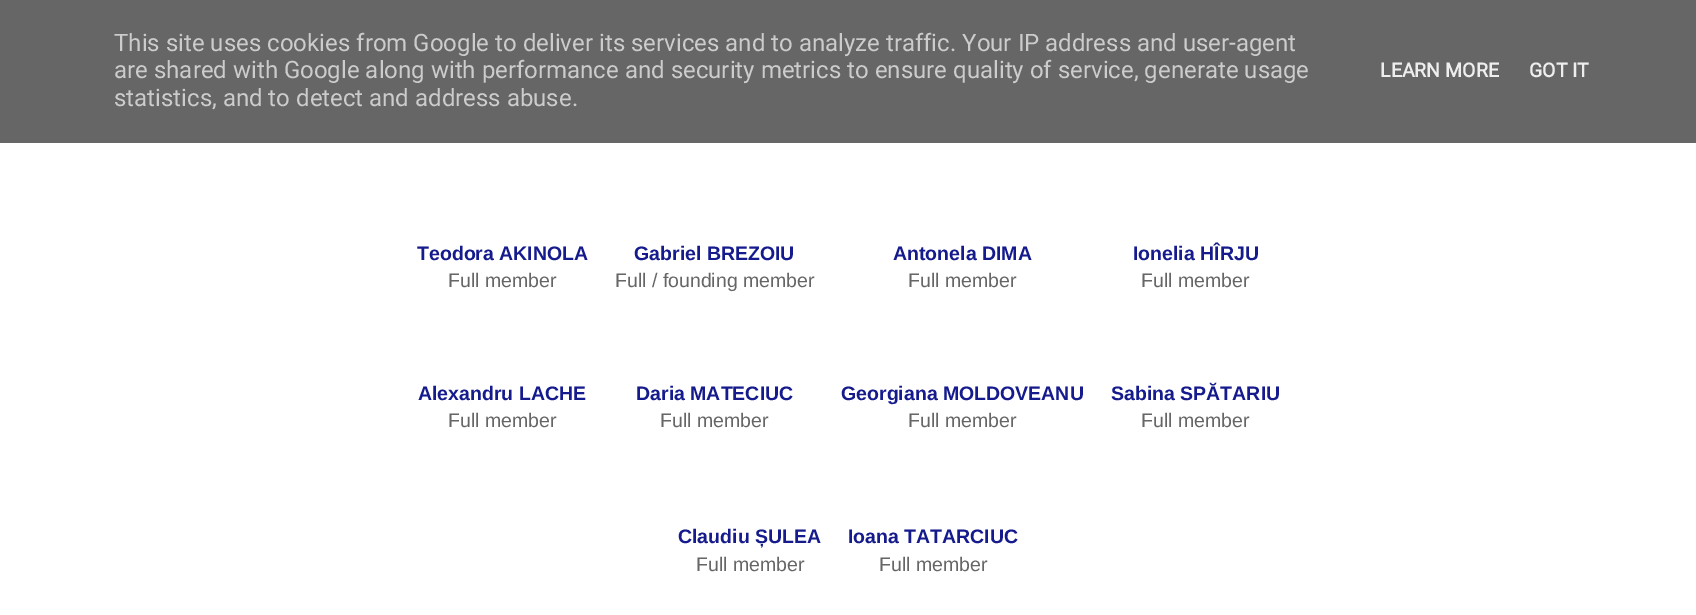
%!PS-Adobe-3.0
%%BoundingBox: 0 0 1696 615
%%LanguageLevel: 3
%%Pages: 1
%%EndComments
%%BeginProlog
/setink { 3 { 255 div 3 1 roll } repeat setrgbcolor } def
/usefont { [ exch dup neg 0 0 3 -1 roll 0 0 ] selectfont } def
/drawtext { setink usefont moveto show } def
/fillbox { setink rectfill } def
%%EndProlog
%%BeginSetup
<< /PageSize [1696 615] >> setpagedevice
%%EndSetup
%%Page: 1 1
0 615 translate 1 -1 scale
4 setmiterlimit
0 0 1696 615 255 255 255 fillbox
0 0 1696 143 102 102 102 fillbox
(This site uses cookies from Google to deliver its services and to analyze traffic. Your IP address and user-agent) 114 51 /Roboto-Regular 24 204 204 204 drawtext
(are shared with Google along with performance and security metrics to ensure quality of service, generate usage) 114 78 /Roboto-Regular 24 204 204 204 drawtext
(statistics, and to detect and address abuse.) 114 106 /Roboto-Regular 24 204 204 204 drawtext
(LEARN MORE) 1380 77 /Roboto-Bold 19.5 238 238 238 drawtext
(GOT IT) 1529 77 /Roboto-Bold 19.5 238 238 238 drawtext
(Teodora AKINOLA) 417 260 /LiberationSans-Bold 19.5 21 27 141 drawtext
(Full member) 448 287 /LiberationSans-Regular 19.5 102 102 102 drawtext
(Gabriel BREZOIU) 634 260 /LiberationSans-Bold 19.5 21 27 141 drawtext
(Full / founding member) 615 287 /LiberationSans-Regular 19.5 102 102 102 drawtext
(Antonela DIMA) 893 260 /LiberationSans-Bold 19.5 21 27 141 drawtext
(Full member) 908 287 /LiberationSans-Regular 19.5 102 102 102 drawtext
(Ionelia HÎRJU) 1133 260 /LiberationSans-Bold 19.5 21 27 141 drawtext
(Full member) 1141 287 /LiberationSans-Regular 19.5 102 102 102 drawtext
(Alexandru LACHE) 418 400 /LiberationSans-Bold 19.5 21 27 141 drawtext
(Full member) 448 427 /LiberationSans-Regular 19.5 102 102 102 drawtext
(Daria MATECIUC) 636 400 /LiberationSans-Bold 19.5 21 27 141 drawtext
(Full member) 660 427 /LiberationSans-Regular 19.5 102 102 102 drawtext
(Georgiana MOLDOVEANU) 841 400 /LiberationSans-Bold 19.5 21 27 141 drawtext
(Full member) 908 427 /LiberationSans-Regular 19.5 102 102 102 drawtext
(Sabina SPĂTARIU) 1111 400 /LiberationSans-Bold 19.5 21 27 141 drawtext
(Full member) 1141 427 /LiberationSans-Regular 19.5 102 102 102 drawtext
(Claudiu ȘULEA) 678 543 /LiberationSans-Bold 19.5 21 27 141 drawtext
(Full member) 696 571 /LiberationSans-Regular 19.5 102 102 102 drawtext
(Ioana TATARCIUC) 848 543 /LiberationSans-Bold 19.5 21 27 141 drawtext
(Full member) 879 571 /LiberationSans-Regular 19.5 102 102 102 drawtext
showpage
%%EOF
